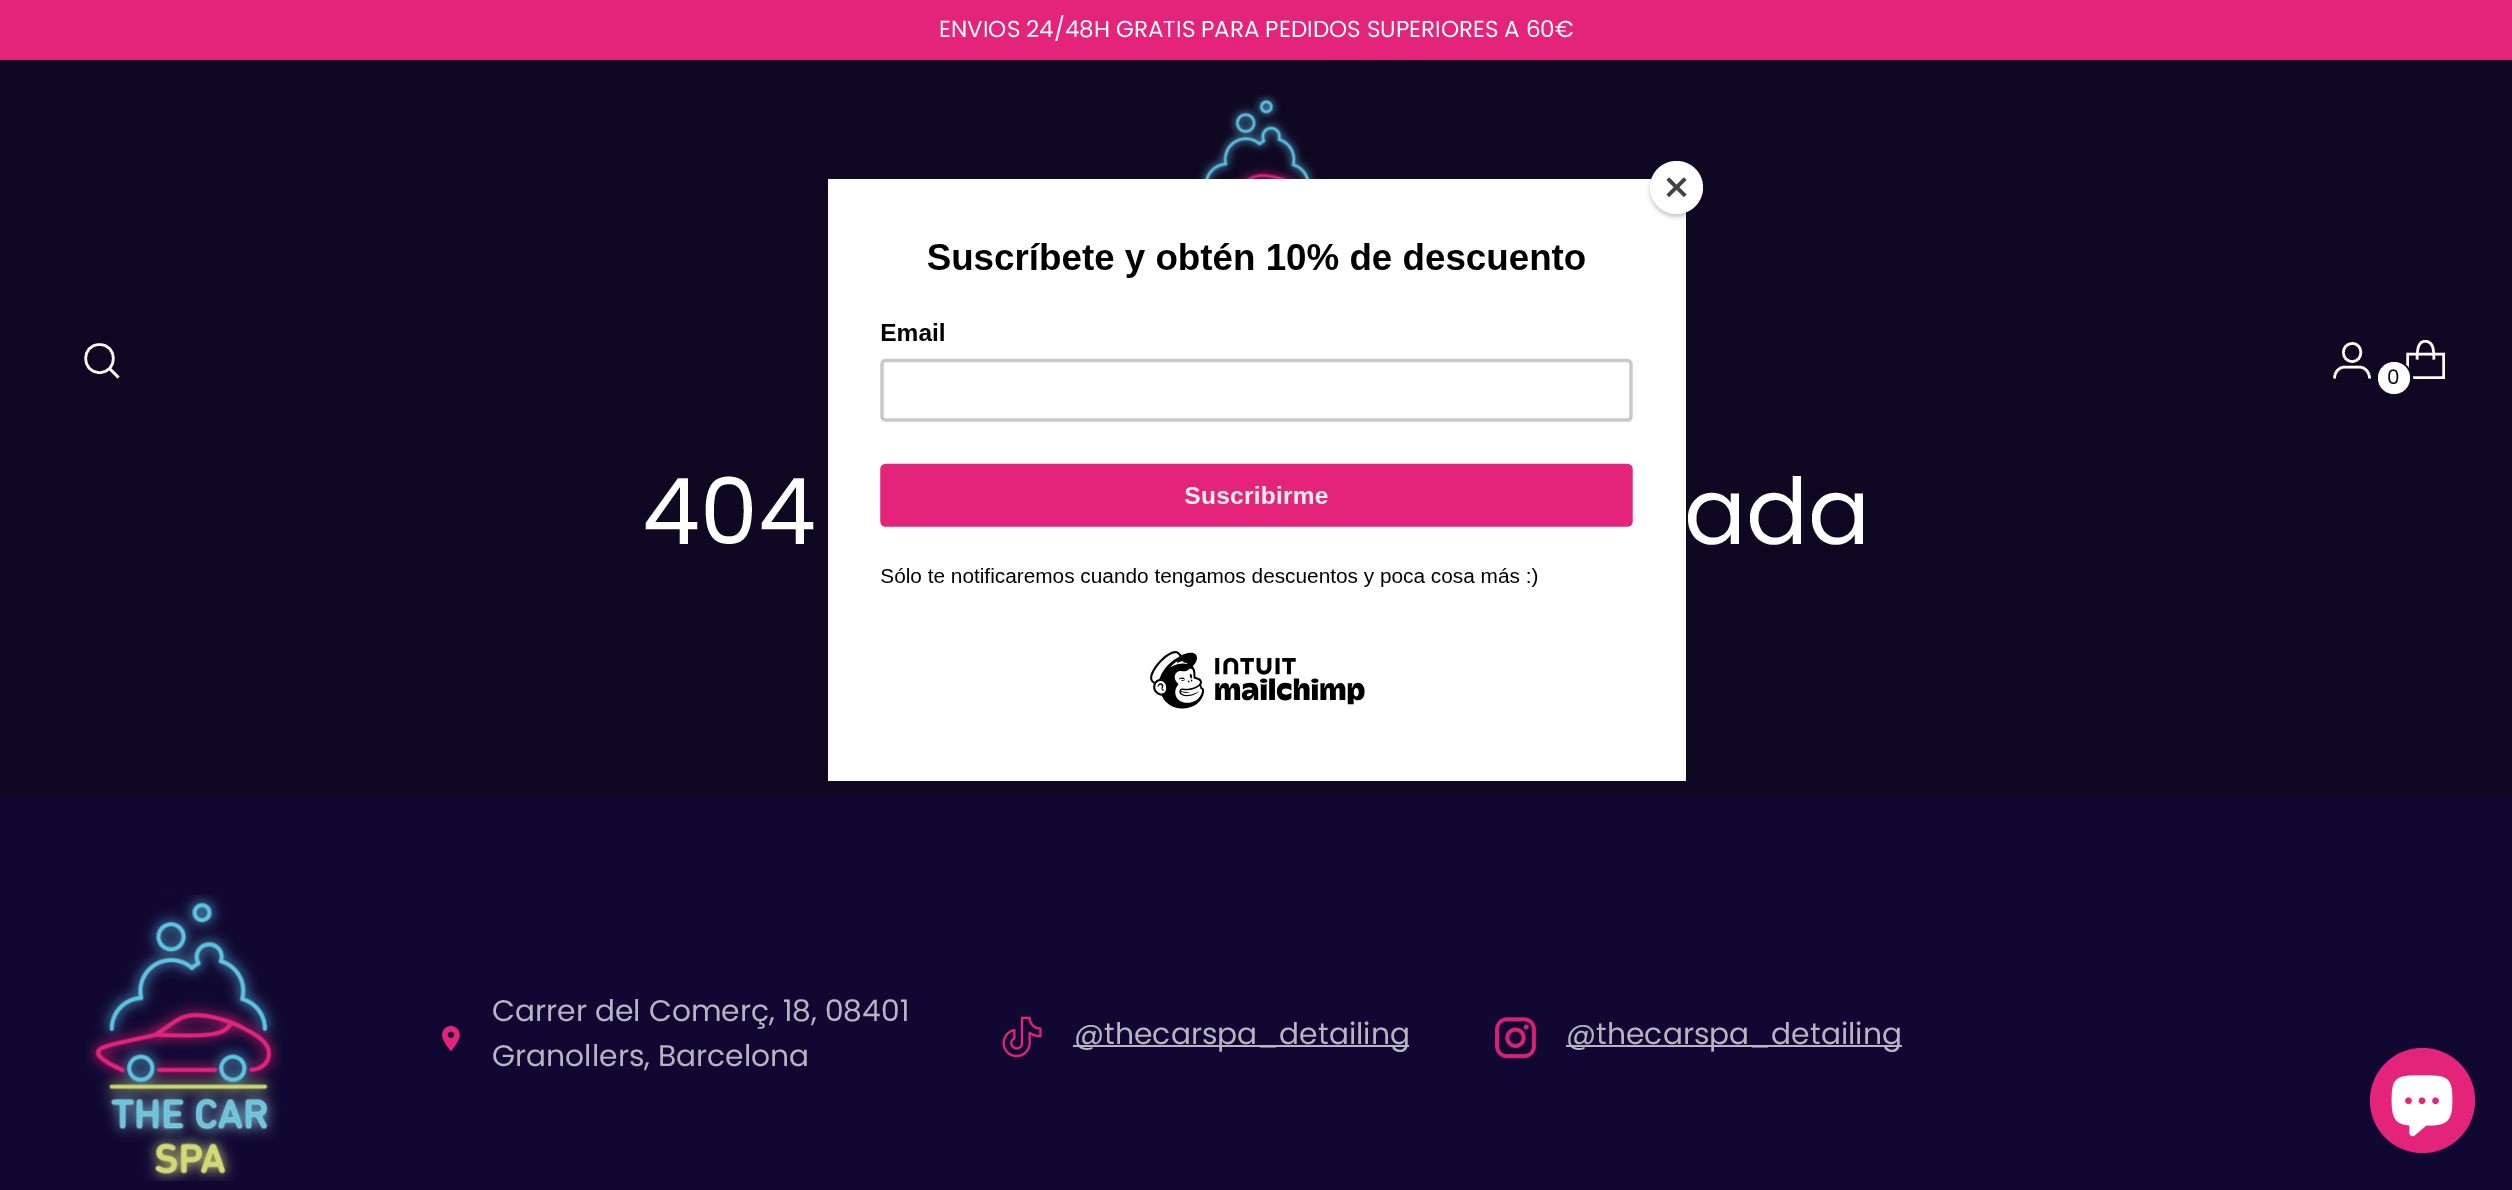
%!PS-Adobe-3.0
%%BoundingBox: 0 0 2512 1190
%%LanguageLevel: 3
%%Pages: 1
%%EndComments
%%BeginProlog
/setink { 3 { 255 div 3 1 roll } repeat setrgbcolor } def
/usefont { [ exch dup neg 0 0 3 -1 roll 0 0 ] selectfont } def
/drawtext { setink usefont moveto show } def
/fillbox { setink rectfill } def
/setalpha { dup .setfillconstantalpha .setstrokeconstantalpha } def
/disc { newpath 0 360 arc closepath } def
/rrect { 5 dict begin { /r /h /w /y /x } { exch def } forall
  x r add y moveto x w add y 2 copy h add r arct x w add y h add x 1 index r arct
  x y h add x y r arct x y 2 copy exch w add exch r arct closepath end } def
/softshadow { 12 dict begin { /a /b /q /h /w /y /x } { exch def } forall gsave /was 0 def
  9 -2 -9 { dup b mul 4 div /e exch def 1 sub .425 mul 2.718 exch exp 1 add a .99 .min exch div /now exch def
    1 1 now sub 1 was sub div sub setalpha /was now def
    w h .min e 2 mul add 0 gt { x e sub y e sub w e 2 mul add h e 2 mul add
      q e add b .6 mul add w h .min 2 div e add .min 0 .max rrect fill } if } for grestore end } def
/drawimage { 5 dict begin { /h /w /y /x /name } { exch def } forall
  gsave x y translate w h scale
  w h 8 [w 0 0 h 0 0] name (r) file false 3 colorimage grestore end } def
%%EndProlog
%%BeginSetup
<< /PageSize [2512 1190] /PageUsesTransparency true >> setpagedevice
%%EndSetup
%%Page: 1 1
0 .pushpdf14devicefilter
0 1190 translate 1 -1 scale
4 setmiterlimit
0 0 2512 1190 15 8 35 fillbox
0 0 2512 60 228 36 122 fillbox
/Poppins-Regular 23.1 usefont
255 255 255 setink
939 37 moveto -0.25 0 32 (ENVIOS 24/48H GRATIS PARA PEDIDOS SUPERIORES A 60€) widthshow
(assets/img1.rgb) 1198 94 119 85 drawimage
2.5 setlinewidth
1 setlinecap
99.5 372.5 moveto 118 372.5 118 344.5 99.5 344.5 curveto 81 344.5 81 372.5 99.5 372.5 curveto closepath stroke
0 setlinecap
109.5 368.5 moveto 118.5 377.5 lineto stroke
2352 361.5 moveto 2364 361.5 2363.5 343 2352 343.5 curveto 2340.5 344 2340.5 361 2352 361.5 curveto closepath 2334.5 378.5 moveto 2334.5 372.5 2338 367 2345.5 367 curveto 2358.5 367 lineto 2366 367 2369.5 372.5 2369.5 378.5 curveto stroke
2 setlinejoin
2434 359.5 moveto 2433.5 355 2434 350.5 2432.5 346.5 curveto 2431.5 344 2430 342 2427 341.5 curveto 2416.5 339.5 2417.5 353 2417 359.5 curveto stroke
0 setlinejoin
2443.5 377.5 moveto 2443.5 354 lineto 2407.5 354 lineto 2407.5 377.5 lineto closepath stroke
16 9 36 setink
3 setlinewidth
2395 379 16.5 disc stroke
255 255 255 setink
2394 378 16 disc fill
(0) 2387 384 /Poppins-Regular 20 16 9 36 drawtext
(404) 642 544 /Poppins-Regular 92 255 255 255 drawtext
(ada) 1684 544 /Poppins-Regular 92 255 255 255 drawtext
0 796 2512 394 16 8 51 fillbox
(assets/img2.rgb) 85 894 198 287 drawimage
(assets/img3.rgb) 442 1026 18 26 drawimage
(Carrer del Comerç, 18, 08401) 492 1021 /Poppins-Regular 29.75 183 181 194 drawtext
(Granollers, Barcelona) 492 1066 /Poppins-Regular 29.75 183 181 194 drawtext
(assets/img4.rgb) 1002 1016 40 42 drawimage
1073 1045 336 2 183 181 194 fillbox
(@thecarspa_detailing) 1074 1044 /Poppins-Regular 29.75 183 181 194 drawtext
(assets/img5.rgb) 1495 1017 41 42 drawimage
1566 1045 336 2 183 181 194 fillbox
(@thecarspa_detailing) 1566 1044 /Poppins-Regular 29.75 183 181 194 drawtext
(assets/img6.rgb) 828 179 858 602 drawimage
0 0 0 setink
1650 165 53 52 26 2 0.2 softshadow
255 255 255 setink
1676.5 187.5 26.5 disc fill
65 65 65 setink
1684 177.5 moveto 1686.5 180 lineto 1669 197 lineto 1666.5 194.5 lineto closepath fill
1666.5 180 moveto 1669 177.5 lineto 1686.5 194.5 lineto 1684 197 lineto closepath fill
228 36 122 setink
2422.5 1100.5 52.5 disc fill
(assets/img7.rgb) 2391 1075 62 62 drawimage
.poppdf14devicefilter showpage
%%EOF
